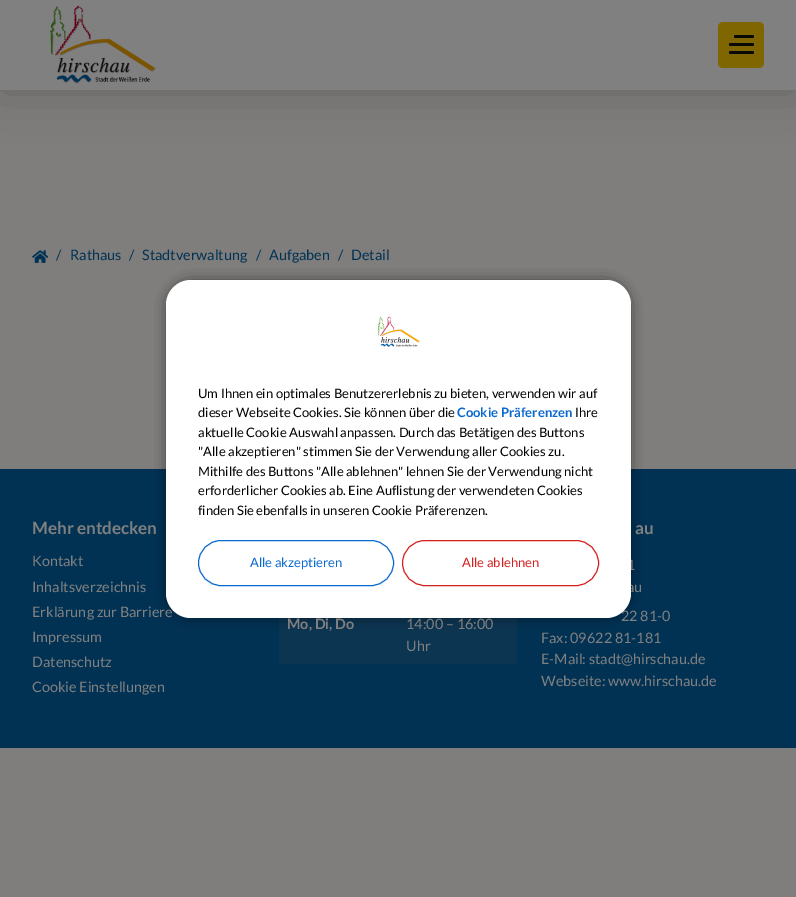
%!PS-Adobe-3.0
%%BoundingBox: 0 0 796 897
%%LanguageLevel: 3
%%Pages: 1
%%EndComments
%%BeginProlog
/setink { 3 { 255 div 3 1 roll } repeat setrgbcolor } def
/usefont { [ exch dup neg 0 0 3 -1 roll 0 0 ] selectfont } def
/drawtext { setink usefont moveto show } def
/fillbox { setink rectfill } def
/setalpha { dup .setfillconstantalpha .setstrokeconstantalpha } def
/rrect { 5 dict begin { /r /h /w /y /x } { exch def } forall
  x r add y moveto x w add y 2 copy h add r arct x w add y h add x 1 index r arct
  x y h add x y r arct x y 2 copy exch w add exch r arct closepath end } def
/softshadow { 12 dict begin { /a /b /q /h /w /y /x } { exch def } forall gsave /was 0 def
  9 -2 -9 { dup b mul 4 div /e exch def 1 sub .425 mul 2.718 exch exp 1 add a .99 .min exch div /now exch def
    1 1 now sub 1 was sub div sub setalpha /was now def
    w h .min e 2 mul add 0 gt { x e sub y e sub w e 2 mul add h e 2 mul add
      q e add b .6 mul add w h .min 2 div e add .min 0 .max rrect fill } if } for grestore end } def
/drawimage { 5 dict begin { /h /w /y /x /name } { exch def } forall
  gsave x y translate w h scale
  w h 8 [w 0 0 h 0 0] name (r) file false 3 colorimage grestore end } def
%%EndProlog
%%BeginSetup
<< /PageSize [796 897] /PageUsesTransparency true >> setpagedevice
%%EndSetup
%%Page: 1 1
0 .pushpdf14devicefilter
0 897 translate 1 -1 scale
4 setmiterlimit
0 0 796 897 127 126 124 fillbox
9 9 9 setink
0 0 796 90 0 25 0.25 softshadow
0 0 796 90 128 128 128 fillbox
(assets/img1.rgb) 50 5 106 79 drawimage
128 102 0 setink
718 22 46 46 5 rrect fill
9 9 9 setink
734 35 20 3 1.5 rrect fill
729 43 25 3 1.5 rrect fill
729 51 25 3 1.5 rrect fill
(assets/img2.rgb) 32 250 16 13 drawimage
(/) 56 260 /Lato-Regular 14.4 1 50 84 drawtext
(Rathaus) 70 260 /Lato-Regular 14.4 1 50 84 drawtext
(/) 129 260 /Lato-Regular 14.4 1 50 84 drawtext
(Stadtverwaltung) 142 260 /Lato-Regular 14.4 1 50 84 drawtext
(/) 256 260 /Lato-Regular 14.4 1 50 84 drawtext
(Aufgaben) 269 260 /Lato-Regular 14.4 1 50 84 drawtext
(/) 338 260 /Lato-Regular 14.4 1 50 84 drawtext
(Detail) 351 260 /Lato-Regular 14.4 1 50 84 drawtext
0 469 796 279 1 50 84 fillbox
279 618 238 46 12 53 82 fillbox
0 0 0 setink
171 285 455 328 20 7.5 1 softshadow
(Erklärung zur Barriere) 32 617 /Lato-Regular 14.4 128 128 128 drawtext
(1) 627 570 /Lato-Regular 14.4 128 128 128 drawtext
(au) 627 592 /Lato-Regular 14.4 128 128 128 drawtext
(22 81-0) 621 621 /Lato-Regular 14.4 128 128 128 drawtext
255 255 255 setink
166 280 465 338 25 rrect fill
(assets/img3.rgb) 378 316 42 31 drawimage
(Um Ihnen ein optimales Benutzererlebnis zu bieten, verwenden wir auf) 198 398 /Lato-Regular 13 0 0 0 drawtext
(dieser Webseite Cookies. Sie können über die) 198 417 /Lato-Regular 13 0 0 0 drawtext
(Cookie Präferenzen) 457 417 /Lato-Bold 13 10 105 206 drawtext
(Ihre) 575 417 /Lato-Regular 13 0 0 0 drawtext
(aktuelle Cookie Auswahl anpassen. Durch das Betätigen des Buttons) 198 437 /Lato-Regular 13 0 0 0 drawtext
("Alle akzeptieren" stimmen Sie der Verwendung aller Cookies zu.) 198 456 /Lato-Regular 13 0 0 0 drawtext
(Mithilfe des Buttons "Alle ablehnen" lehnen Sie der Verwendung nicht) 198 476 /Lato-Regular 13 0 0 0 drawtext
(erforderlicher Cookies ab. Eine Auflistung der verwendeten Cookies) 198 495 /Lato-Regular 13 0 0 0 drawtext
(finden Sie ebenfalls in unseren Cookie Präferenzen.) 198 515 /Lato-Regular 13 0 0 0 drawtext
10 105 206 setink
198.5 540.5 195 45 22.5 rrect stroke
(Alle akzeptieren) 250 567 /Lato-Regular 13 10 105 206 drawtext
213 32 32 setink
402.5 540.5 196 45 22.5 rrect stroke
(Alle ablehnen) 462 567 /Lato-Regular 13 213 32 32 drawtext
(Mehr entdecken) 32 534 /Lato-Bold 17 128 128 128 drawtext
(Kontakt) 32 566 /Lato-Regular 14.4 128 128 128 drawtext
(Inhaltsverzeichnis) 32 592 /Lato-Regular 14.4 128 128 128 drawtext
(Impressum) 32 642 /Lato-Regular 14.4 128 128 128 drawtext
(Datenschutz) 32 667 /Lato-Regular 14.4 128 128 128 drawtext
(Cookie Einstellungen) 32 692 /Lato-Regular 14.4 128 128 128 drawtext
(Mo, Di, Do) 287 629 /Lato-Bold 14.4 128 128 128 drawtext
(14:00 – 16:00) 406 629 /Lato-Regular 14.4 128 128 128 drawtext
(Uhr) 406 651 /Lato-Regular 14.4 128 128 128 drawtext
(au) 635 534 /Lato-Bold 17 128 128 128 drawtext
(Fax: 09622 81-181) 541 643 /Lato-Regular 14.4 128 128 128 drawtext
(E-Mail: stadt@hirschau.de) 541 664 /Lato-Regular 14.4 128 128 128 drawtext
(Webseite: www.hirschau.de) 541 686 /Lato-Regular 14.4 128 128 128 drawtext
.poppdf14devicefilter showpage
%%EOF
